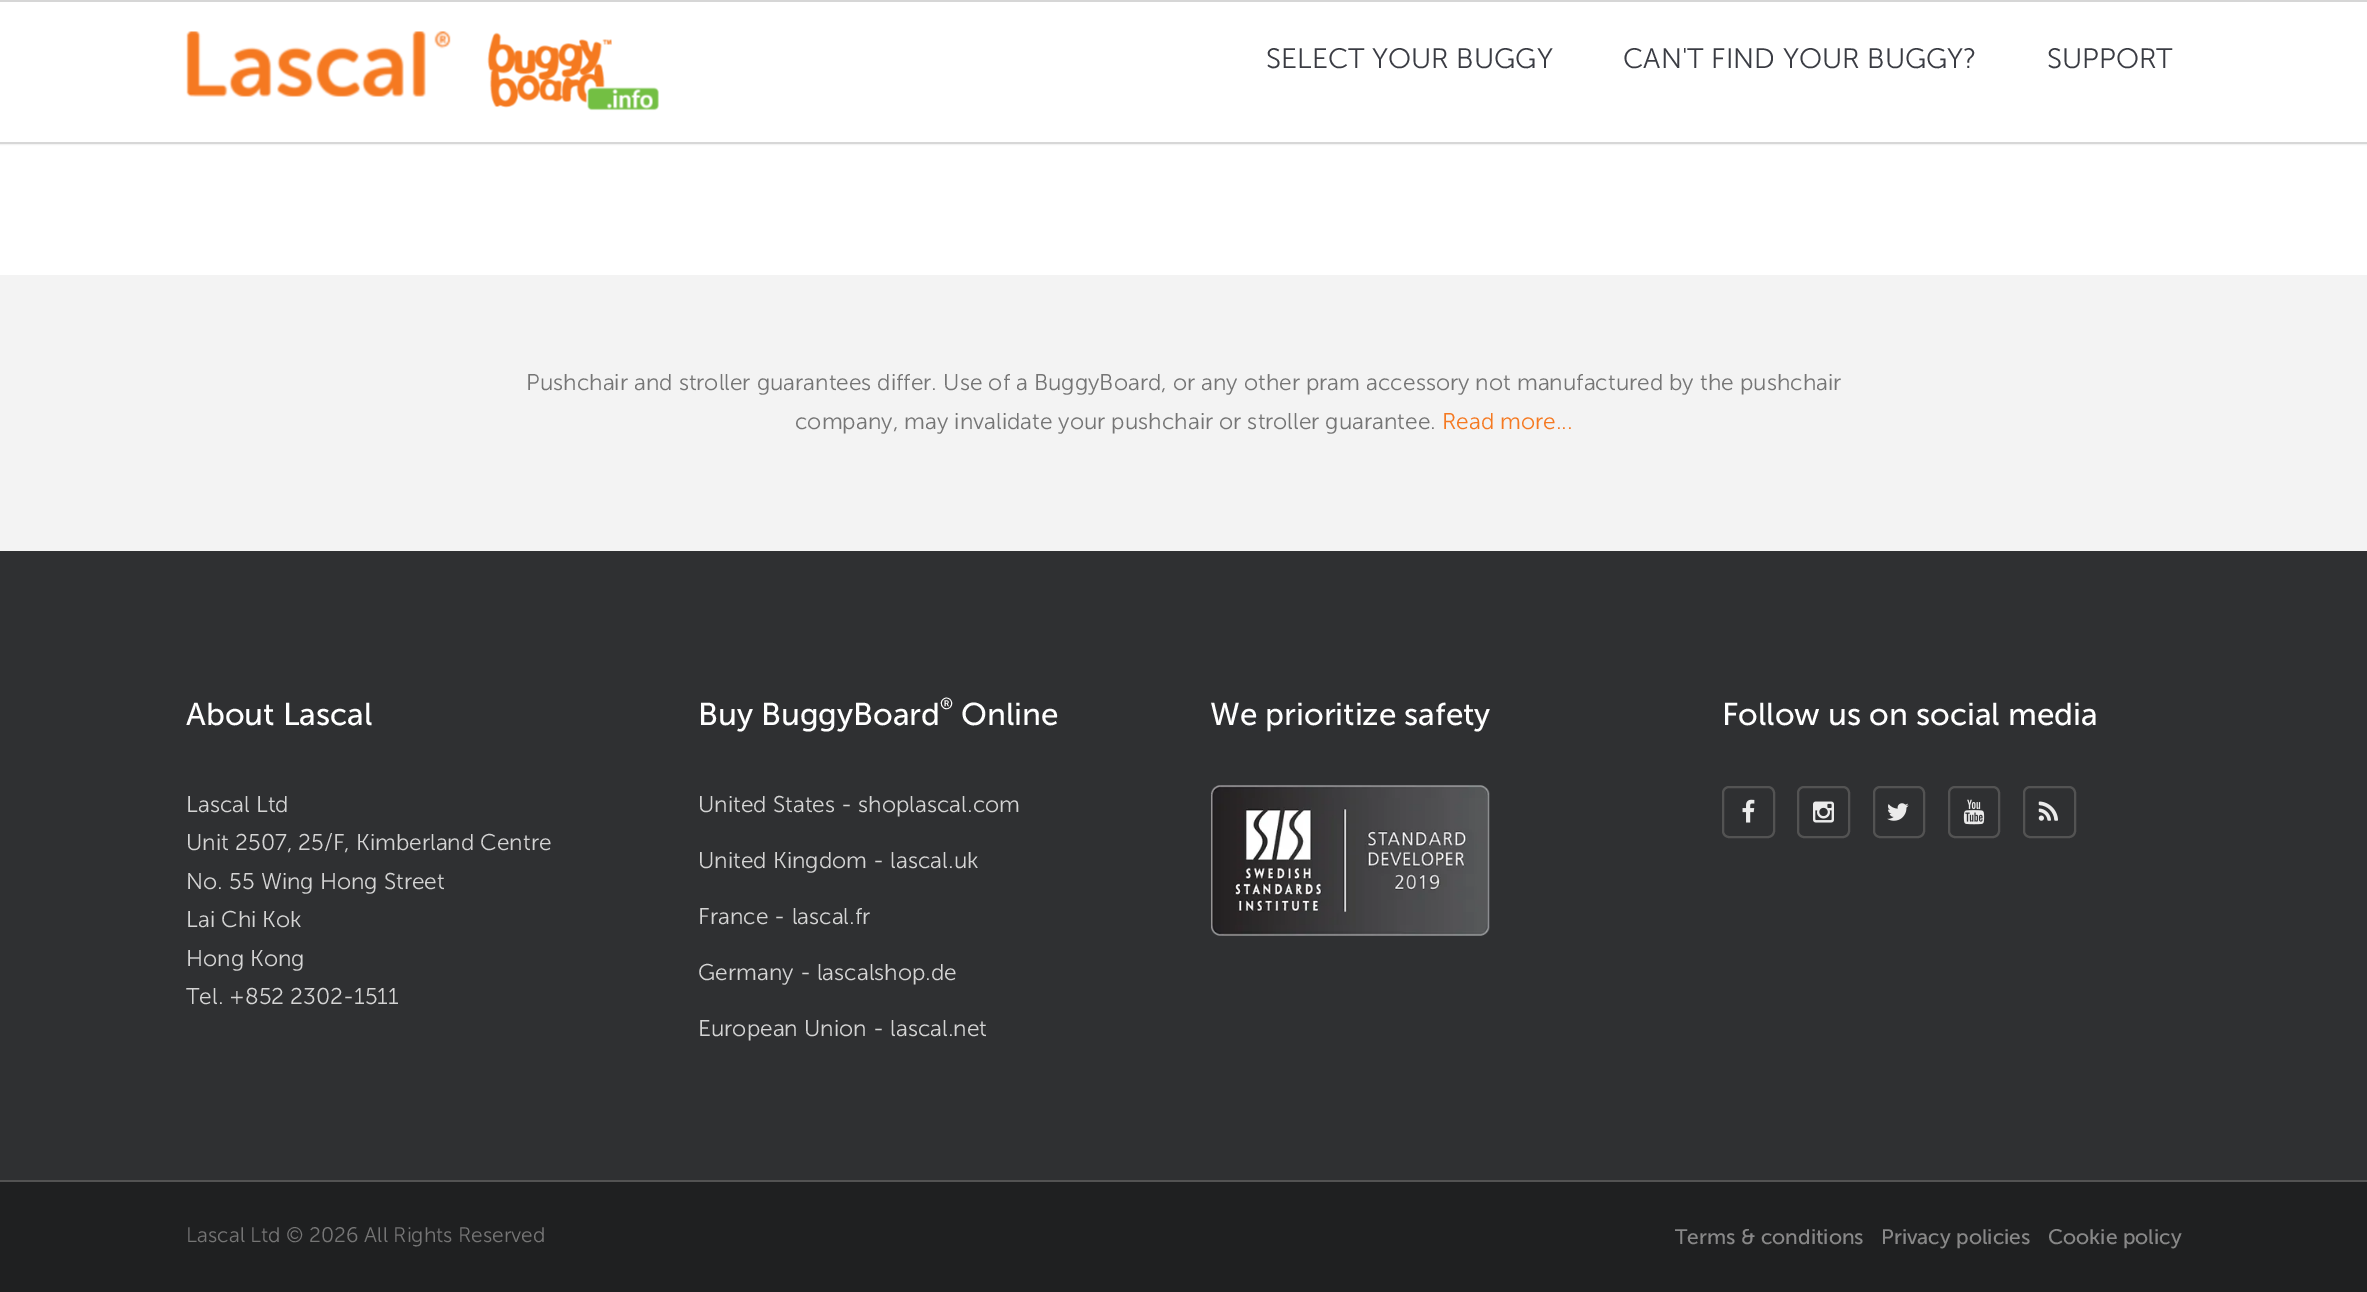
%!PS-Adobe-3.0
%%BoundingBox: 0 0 2367 1292
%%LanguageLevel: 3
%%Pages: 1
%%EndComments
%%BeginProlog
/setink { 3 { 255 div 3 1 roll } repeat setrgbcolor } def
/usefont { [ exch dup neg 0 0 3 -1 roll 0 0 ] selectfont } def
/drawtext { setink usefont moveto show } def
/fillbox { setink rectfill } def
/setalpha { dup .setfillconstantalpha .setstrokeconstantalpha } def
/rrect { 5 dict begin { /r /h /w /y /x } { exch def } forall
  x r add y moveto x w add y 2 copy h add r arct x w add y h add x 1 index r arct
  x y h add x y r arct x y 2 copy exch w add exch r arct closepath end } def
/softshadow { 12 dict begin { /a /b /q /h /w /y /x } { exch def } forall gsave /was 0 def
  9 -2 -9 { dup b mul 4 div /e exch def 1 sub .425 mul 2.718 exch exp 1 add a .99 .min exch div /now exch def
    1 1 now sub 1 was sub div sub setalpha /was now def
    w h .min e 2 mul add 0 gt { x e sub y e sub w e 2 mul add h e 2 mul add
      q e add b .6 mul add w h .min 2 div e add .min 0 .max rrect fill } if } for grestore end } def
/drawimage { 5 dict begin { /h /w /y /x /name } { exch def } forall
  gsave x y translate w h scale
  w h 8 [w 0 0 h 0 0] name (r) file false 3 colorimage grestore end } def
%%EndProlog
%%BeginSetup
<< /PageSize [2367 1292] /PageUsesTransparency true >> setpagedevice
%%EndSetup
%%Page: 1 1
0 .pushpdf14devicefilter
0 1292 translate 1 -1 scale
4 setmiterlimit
0 0 2367 1292 255 255 255 fillbox
215 215 215 setink
0 0 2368 144 0 1 1 softshadow
0 2 2367 140 255 255 255 fillbox
0 142 2367 2 215 215 215 fillbox
0 0 2367 2 214 214 214 fillbox
(assets/img1.rgb) 186 31 265 66 drawimage
(assets/img2.rgb) 487 32 172 79 drawimage
(SELECT YOUR BUGGY) 1266 68 /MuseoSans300-Light 28 58 60 67 drawtext
(CAN'T FIND YOUR BUGGY?) 1623 68 /MuseoSans300-Light 28 58 60 67 drawtext
(SUPPORT) 2047 68 /MuseoSans300-Light 28 58 60 67 drawtext
0 275 2367 276 243 243 243 fillbox
(Pushchair and stroller guarantees differ. Use of a BuggyBoard, or any other pram accessory not manufactured by the pushchair) 526 390 /MuseoSans300-Light 22.75 117 117 117 drawtext
(company, may invalidate your pushchair or stroller guarantee.) 795 429 /MuseoSans300-Light 22.75 117 117 117 drawtext
(Read more...) 1442 429 /MuseoSans300-Light 22.75 245 121 33 drawtext
0 551 2367 629 47 48 50 fillbox
(About Lascal) 186 725 /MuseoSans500-Regular 31.5 255 255 255 drawtext
(Lascal Ltd) 186 812 /MuseoSans300-Light 22.75 212 212 212 drawtext
(Unit 2507, 25/F, Kimberland Centre) 186 850 /MuseoSans300-Light 22.75 212 212 212 drawtext
(No. 55 Wing Hong Street) 186 889 /MuseoSans300-Light 22.75 212 212 212 drawtext
(Lai Chi Kok) 186 927 /MuseoSans300-Light 22.75 212 212 212 drawtext
(Hong Kong) 186 966 /MuseoSans300-Light 22.75 212 212 212 drawtext
(Tel. +852 2302-1511) 186 1004 /MuseoSans300-Light 22.75 212 212 212 drawtext
(Buy BuggyBoard) 698 725 /MuseoSans500-Regular 31.5 255 255 255 drawtext
(®) 940 709 /MuseoSans500-Regular 16 255 255 255 drawtext
(Online) 961 725 /MuseoSans500-Regular 31.5 255 255 255 drawtext
(United States - shoplascal.com) 698 812 /MuseoSans300-Light 22.75 212 212 212 drawtext
(United Kingdom - lascal.uk) 698 868 /MuseoSans300-Light 22.75 212 212 212 drawtext
(France - lascal.fr) 698 924 /MuseoSans300-Light 22.75 212 212 212 drawtext
(Germany - lascalshop.de) 698 980 /MuseoSans300-Light 22.75 212 212 212 drawtext
(European Union - lascal.net) 698 1036 /MuseoSans300-Light 22.75 212 212 212 drawtext
(We prioritize safety) 1210 725 /MuseoSans500-Regular 31.5 255 255 255 drawtext
(assets/img3.rgb) 1211 785 279 151 drawimage
(Follow us on social media) 1722 725 /MuseoSans500-Regular 31.5 255 255 255 drawtext
83 83 83 setink
2 setlinewidth
1723 787 51 50 6 rrect stroke
(assets/img4.rgb) 1742 799 13 24 drawimage
1798 787 51 50 6 rrect stroke
(assets/img5.rgb) 1813 801 21 22 drawimage
1874 787 50 50 6 rrect stroke
(assets/img6.rgb) 1887 803 22 18 drawimage
1949 787 50 50 6 rrect stroke
(assets/img7.rgb) 1963 799 22 26 drawimage
2024 787 51 50 6 rrect stroke
(assets/img8.rgb) 2038 801 20 20 drawimage
0 1182 2367 110 31 32 33 fillbox
0 1180 2367 2 83 83 83 fillbox
(Lascal Ltd © 2026 All Rights Reserved) 186 1242 /MuseoSans300-Light 21 117 117 117 drawtext
(Terms & conditions) 1675 1244 /MuseoSans500-Regular 21 136 136 136 drawtext
(Privacy policies) 1881 1244 /MuseoSans500-Regular 21 136 136 136 drawtext
(Cookie policy) 2048 1244 /MuseoSans500-Regular 21 136 136 136 drawtext
.poppdf14devicefilter showpage
%%EOF
